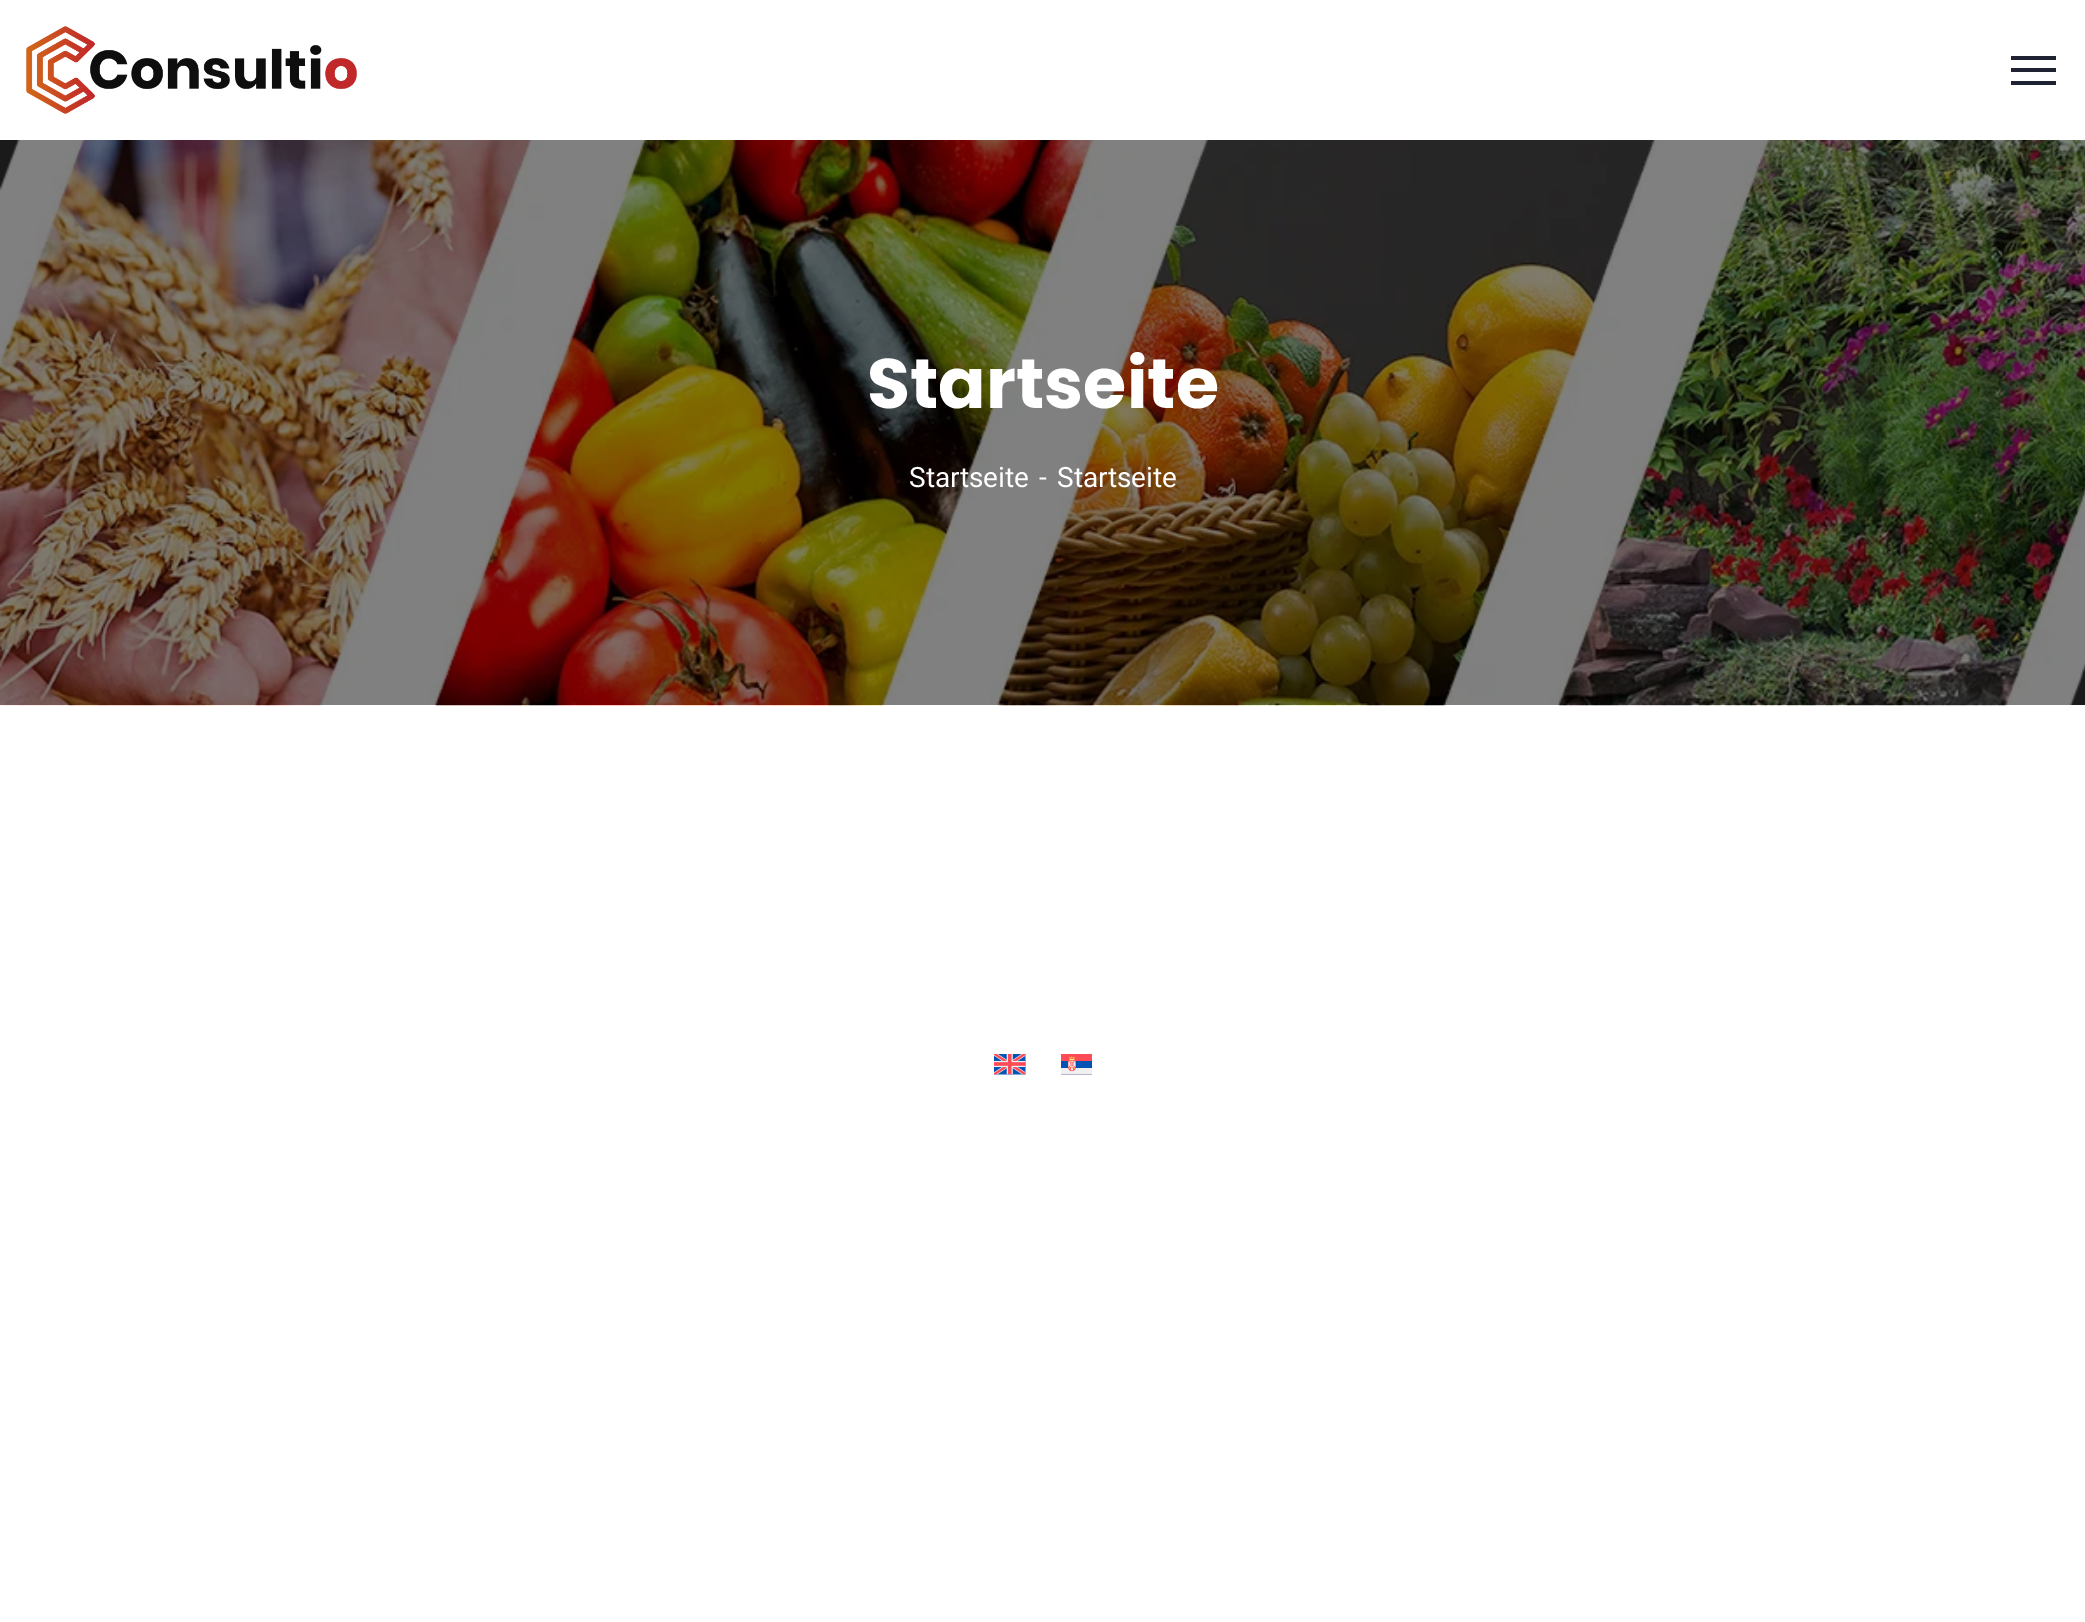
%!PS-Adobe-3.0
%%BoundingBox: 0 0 2085 1622
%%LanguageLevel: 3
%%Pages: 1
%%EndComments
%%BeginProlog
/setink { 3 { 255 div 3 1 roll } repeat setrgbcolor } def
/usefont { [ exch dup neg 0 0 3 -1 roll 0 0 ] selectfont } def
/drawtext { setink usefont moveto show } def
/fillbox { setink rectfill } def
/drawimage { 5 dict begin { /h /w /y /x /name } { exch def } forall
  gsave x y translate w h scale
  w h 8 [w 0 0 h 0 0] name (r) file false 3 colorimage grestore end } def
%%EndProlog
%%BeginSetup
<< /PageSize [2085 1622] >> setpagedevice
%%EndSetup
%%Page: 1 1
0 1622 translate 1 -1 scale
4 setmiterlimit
0 0 2085 1622 255 255 255 fillbox
(assets/img1.rgb) 26 26 331 88 drawimage
2011 56 45 4 31 34 51 fillbox
2011 68 45 4 31 34 51 fillbox
2011 81 45 4 31 34 51 fillbox
0 140 2085 565 26 26 26 fillbox
(assets/img2.rgb) 0 140 2085 566 drawimage
(Startseite) 867 408 /Poppins-Bold 70 255 255 255 drawtext
(Startseite) 909 487 /Roboto-Regular 28 255 255 255 drawtext
(-) 1039 487 /Roboto-Regular 28 255 255 255 drawtext
(Startseite) 1057 487 /Roboto-Regular 28 255 255 255 drawtext
(assets/img3.rgb) 994 1054 32 21 drawimage
(assets/img4.rgb) 1061 1054 31 21 drawimage
showpage
%%EOF
